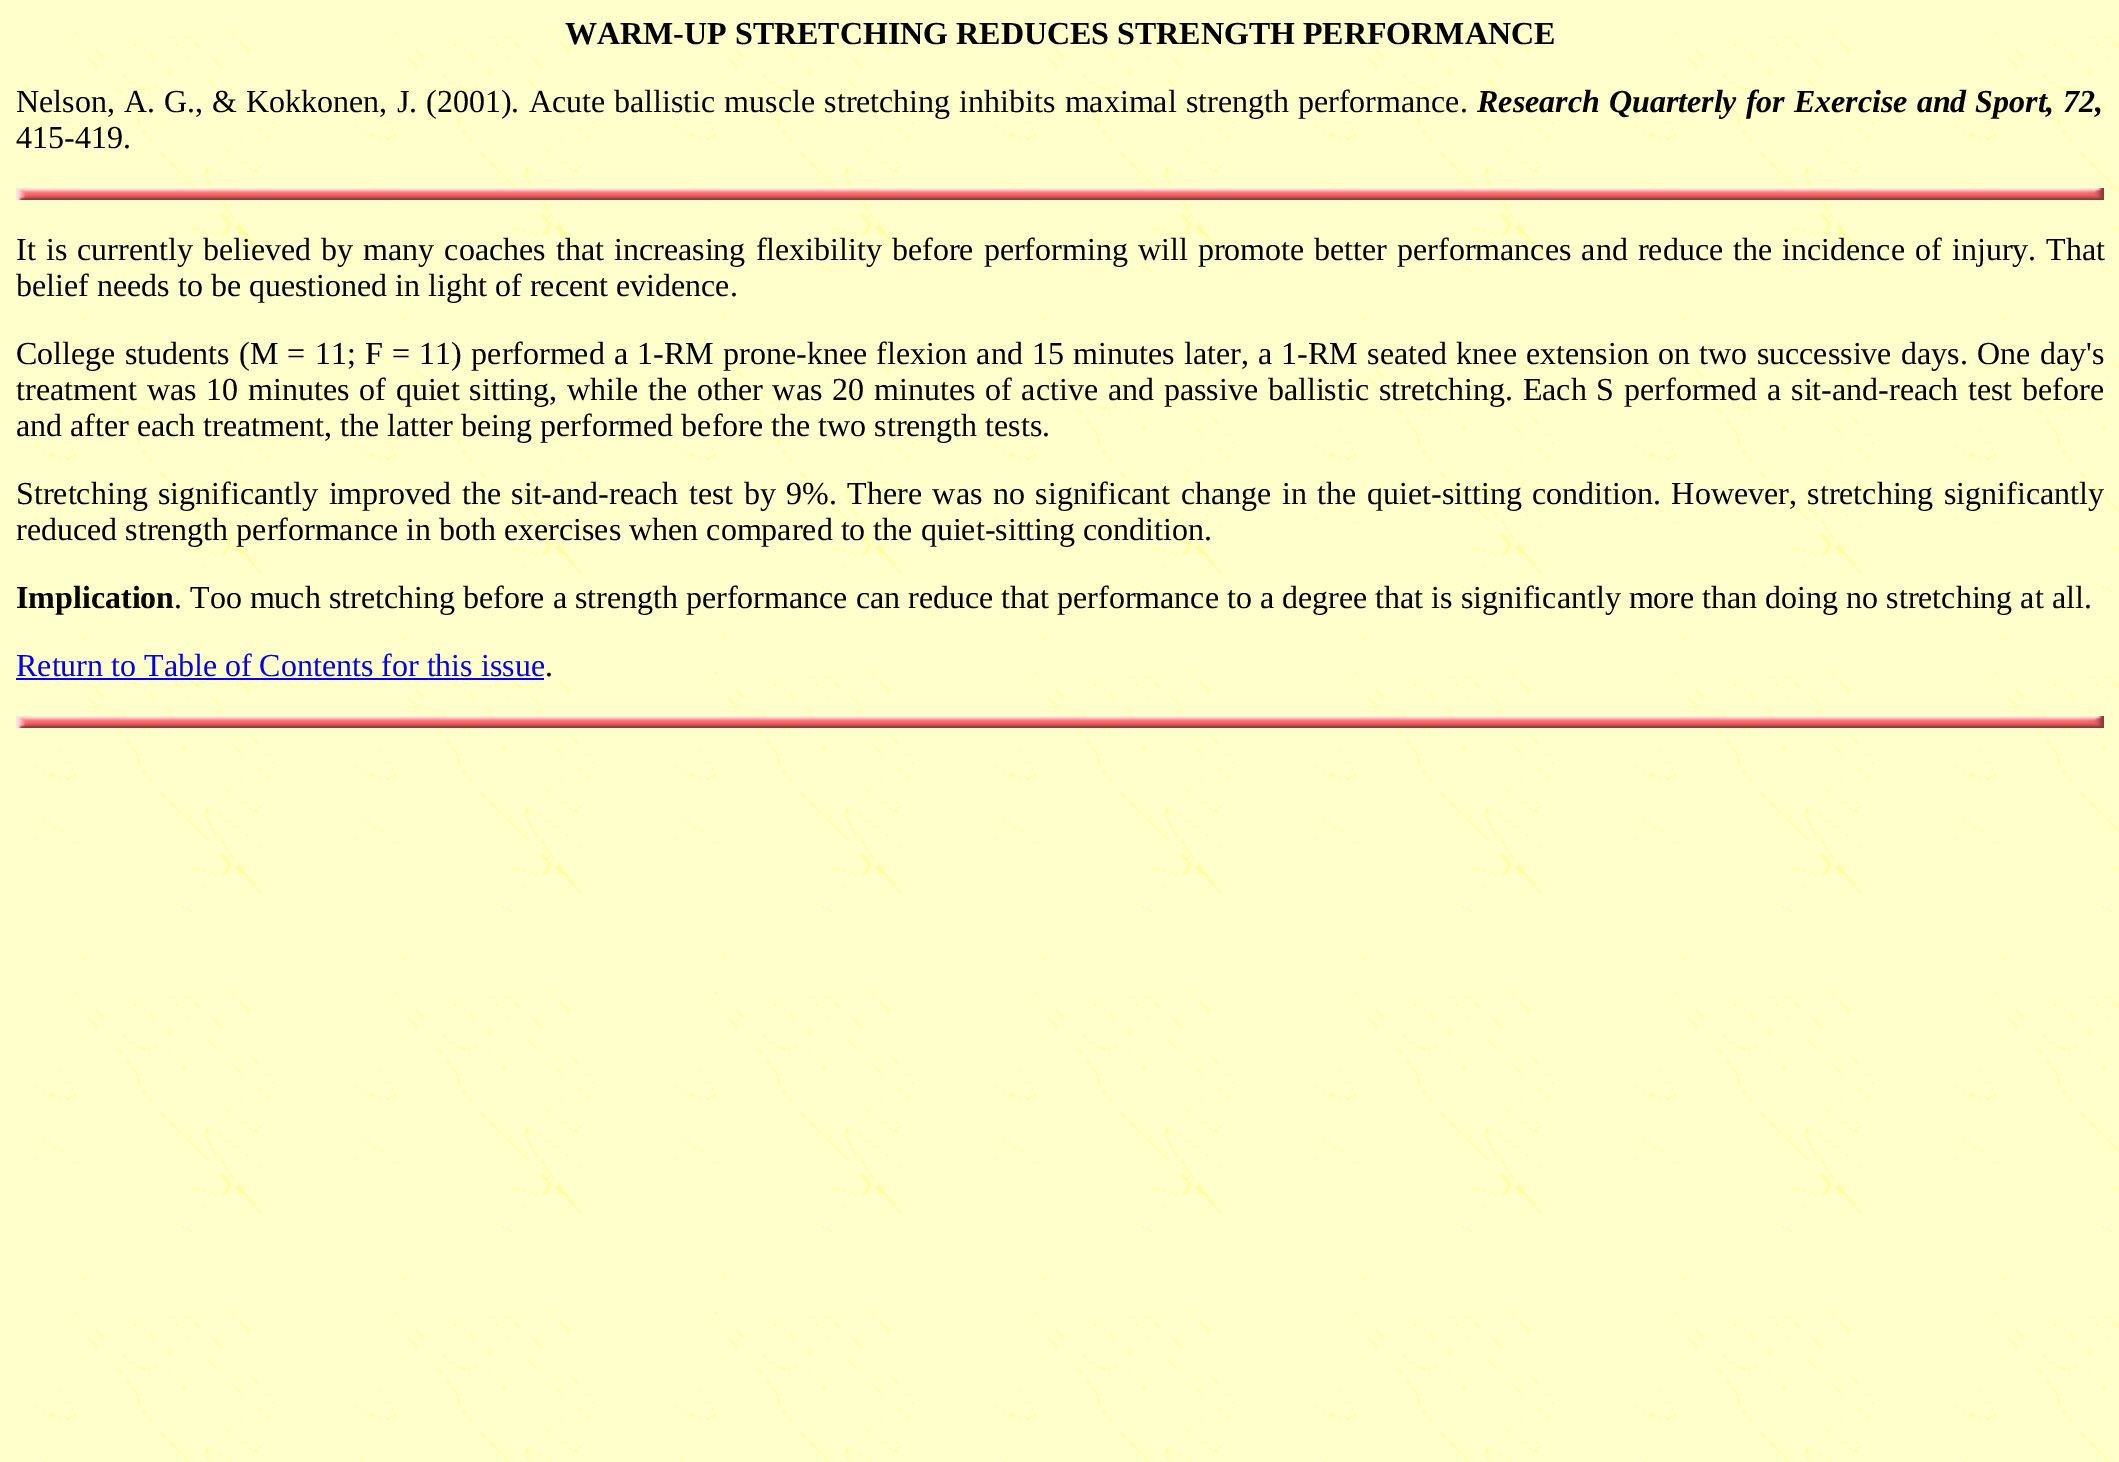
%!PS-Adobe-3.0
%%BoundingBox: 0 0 2119 1462
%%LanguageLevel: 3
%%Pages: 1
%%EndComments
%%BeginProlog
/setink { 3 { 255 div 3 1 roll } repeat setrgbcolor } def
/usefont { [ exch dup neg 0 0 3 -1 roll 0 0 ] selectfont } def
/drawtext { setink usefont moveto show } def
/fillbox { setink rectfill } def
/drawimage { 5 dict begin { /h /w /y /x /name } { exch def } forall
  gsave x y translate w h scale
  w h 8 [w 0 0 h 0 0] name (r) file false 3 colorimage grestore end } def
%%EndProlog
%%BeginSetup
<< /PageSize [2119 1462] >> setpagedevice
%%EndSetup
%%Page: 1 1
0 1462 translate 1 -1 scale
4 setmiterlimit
0 0 2119 1462 255 255 255 fillbox
(assets/img1.rgb) 0 0 2119 1462 drawimage
(WARM-UP STRETCHING REDUCES STRENGTH PERFORMANCE) 565 44 /LiberationSerif-Bold 32 0 0 0 drawtext
/LiberationSerif-Regular 32 usefont
16 112 moveto 1.1 0 32 (Nelson, A. G., & Kokkonen, J. \(2001\). Acute ballistic muscle stretching inhibits maximal strength performance.) widthshow
/LiberationSerif-BoldItalic 32 usefont
1477 112 moveto 1 0 32 (Research Quarterly for Exercise and Sport, 72,) widthshow
(415-419.) 16 148 /LiberationSerif-Regular 32 0 0 0 drawtext
(assets/img2.rgb) 16 188 2088 12 drawimage
16 260 moveto 2.1 0 32 (It is currently believed by many coaches that increasing flexibility before performing will promote better performances and reduce the incidence of injury. That) widthshow
(belief needs to be questioned in light of recent evidence.) 16 296 /LiberationSerif-Regular 32 0 0 0 drawtext
16 364 moveto 1.3 0 32 (College students \(M = 11; F = 11\) performed a 1-RM prone-knee flexion and 15 minutes later, a 1-RM seated knee extension on two successive days. One day's) widthshow
16 400 moveto 1.8 0 32 (treatment was 10 minutes of quiet sitting, while the other was 20 minutes of active and passive ballistic stretching. Each S performed a sit-and-reach test before) widthshow
(and after each treatment, the latter being performed before the two strength tests.) 16 436 /LiberationSerif-Regular 32 0 0 0 drawtext
16 504 moveto 2.5 0 32 (Stretching significantly improved the sit-and-reach test by 9%. There was no significant change in the quiet-sitting condition. However, stretching significantly) widthshow
(reduced strength performance in both exercises when compared to the quiet-sitting condition.) 16 540 /LiberationSerif-Regular 32 0 0 0 drawtext
(Implication) 16 608 /LiberationSerif-Bold 32 0 0 0 drawtext
(. Too much stretching before a strength performance can reduce that performance to a degree that is significantly more than doing no stretching at all.) 174 608 /LiberationSerif-Regular 32 0 0 0 drawtext
(Return to Table of Contents for this issue) 16 676 /LiberationSerif-Regular 32 0 0 238 drawtext
16 678 528 2 0 0 238 fillbox
(.) 545 676 /LiberationSerif-Regular 32 0 0 0 drawtext
(assets/img2.rgb) 16 716 2088 12 drawimage
showpage
%%EOF
